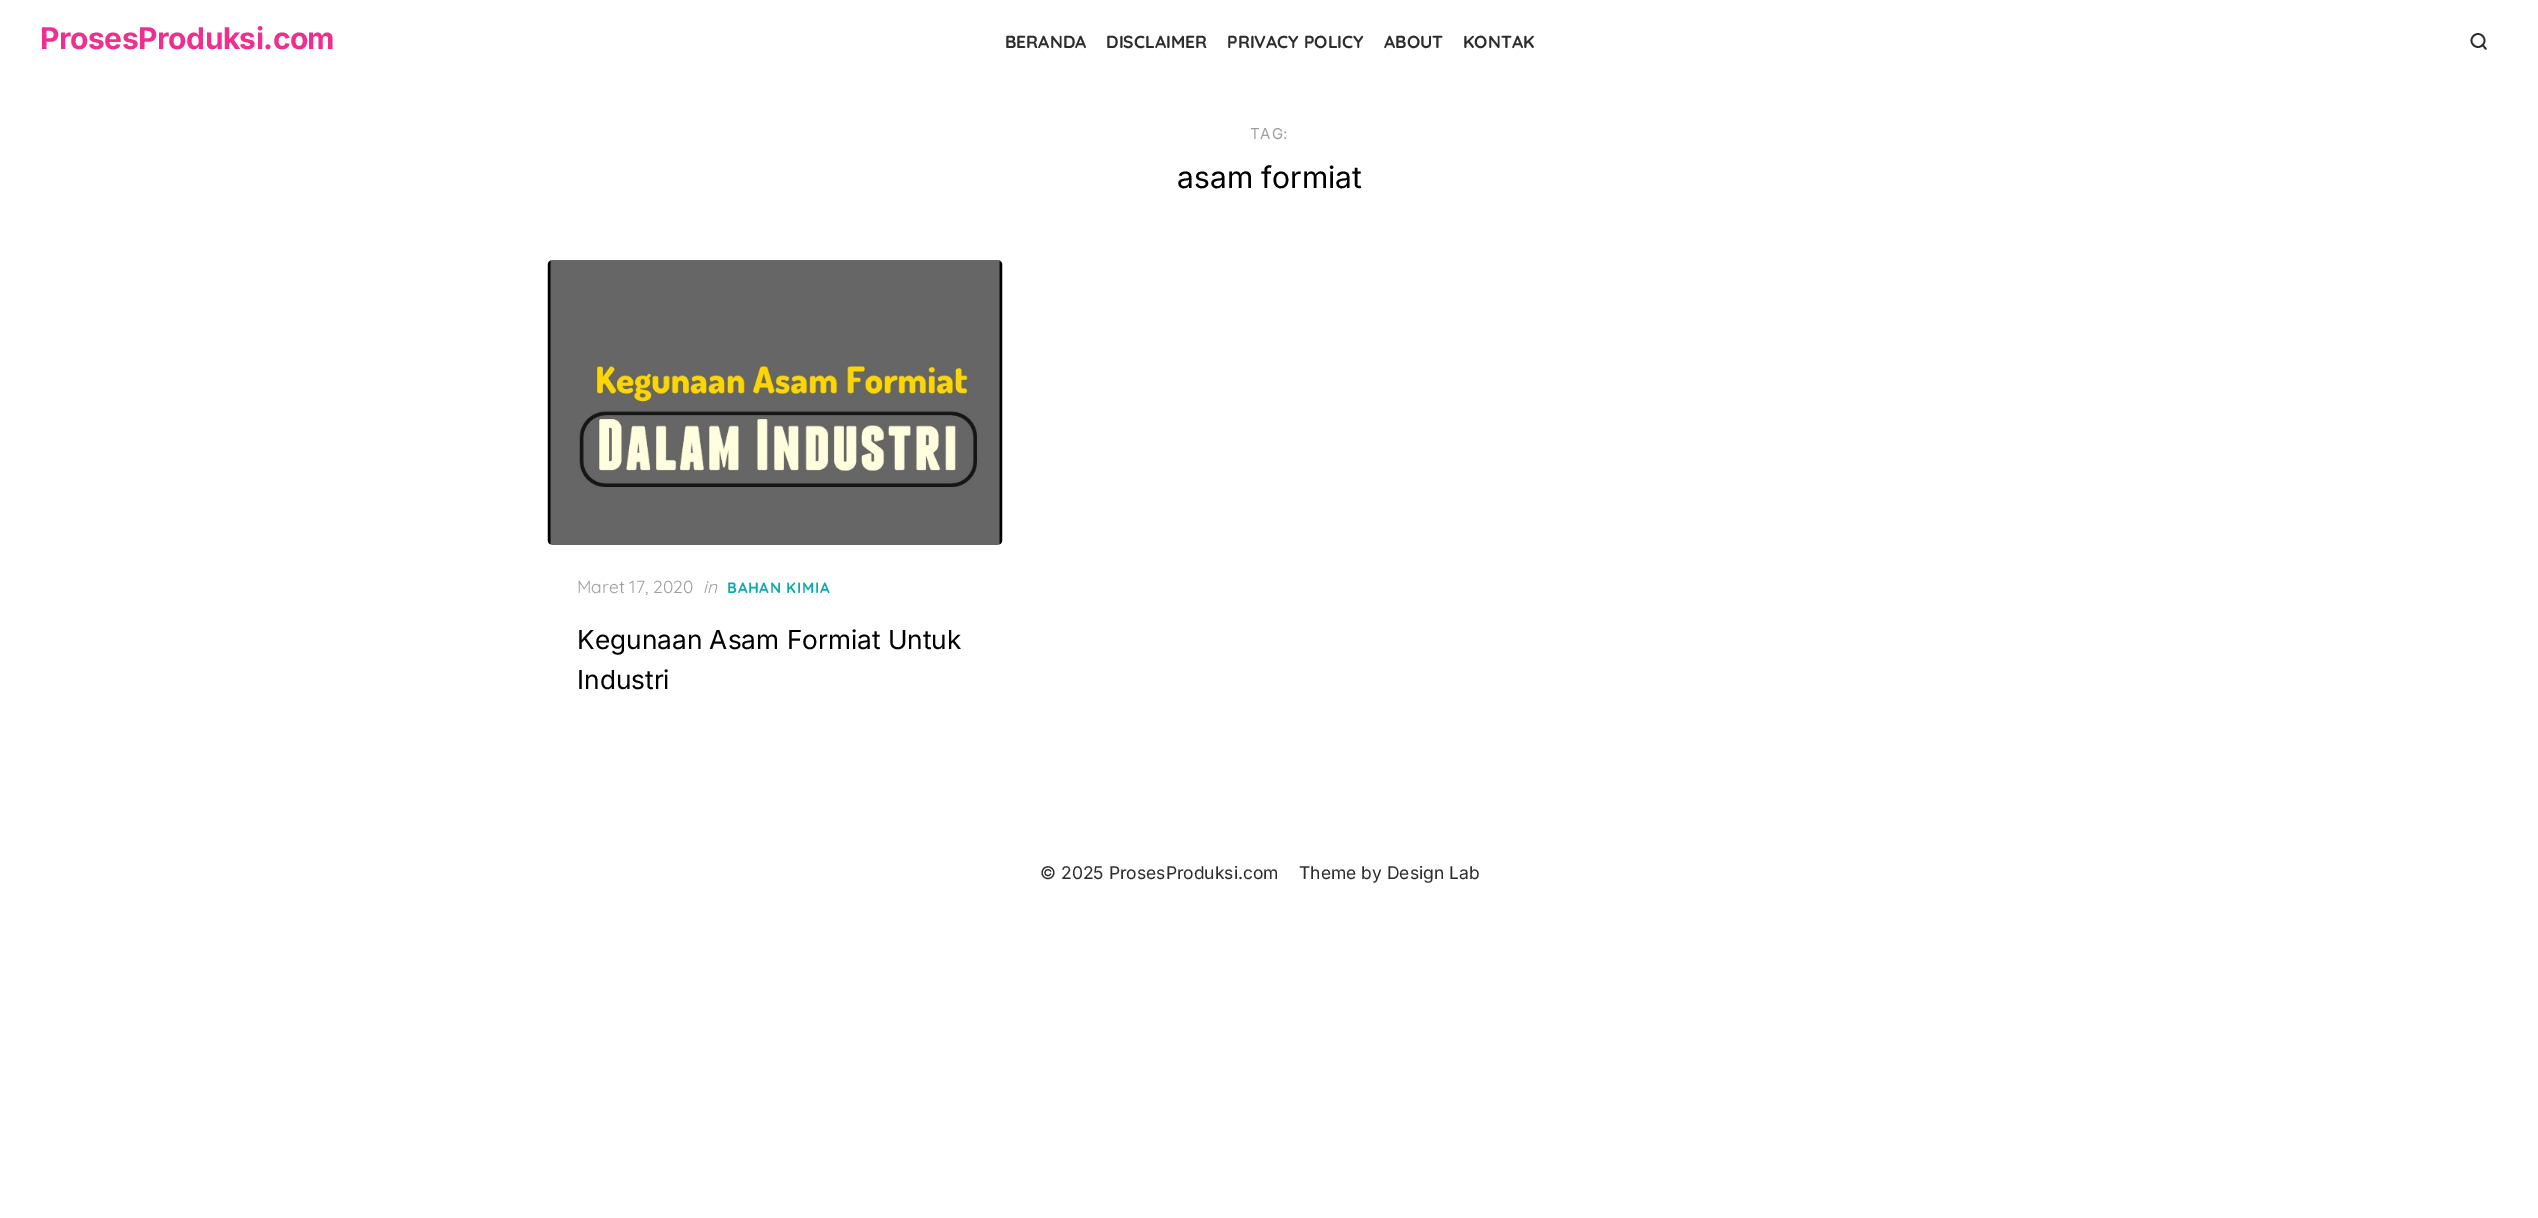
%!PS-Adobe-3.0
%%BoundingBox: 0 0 2538 1218
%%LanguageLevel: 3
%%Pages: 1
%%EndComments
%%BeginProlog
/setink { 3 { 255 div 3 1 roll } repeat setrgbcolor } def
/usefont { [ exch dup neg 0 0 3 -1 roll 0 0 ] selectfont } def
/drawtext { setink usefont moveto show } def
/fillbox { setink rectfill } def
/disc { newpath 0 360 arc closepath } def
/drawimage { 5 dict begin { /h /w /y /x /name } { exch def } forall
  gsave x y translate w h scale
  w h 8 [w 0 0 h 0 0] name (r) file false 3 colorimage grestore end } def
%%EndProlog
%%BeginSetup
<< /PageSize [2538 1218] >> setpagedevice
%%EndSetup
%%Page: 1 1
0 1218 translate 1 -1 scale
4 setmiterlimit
0 0 2538 1218 255 255 255 fillbox
/Inter-Bold 30 usefont
240 46 144 setink
40 49 moveto -0.6 0 (ProsesProduksi.com) ashow
(BERANDA) 1005 48 /Quicksand-Bold 17.5 44 45 46 drawtext
(DISCLAIMER) 1106 48 /Quicksand-Bold 17.5 44 45 46 drawtext
(PRIVACY POLICY) 1227 48 /Quicksand-Bold 17.5 44 45 46 drawtext
(ABOUT) 1384 48 /Quicksand-Bold 17.5 44 45 46 drawtext
(KONTAK) 1463 48 /Quicksand-Bold 17.5 44 45 46 drawtext
1.7 setlinewidth
2478 40.5 6.5 disc stroke
1 setlinecap
1 setlinejoin
2486 49 moveto 2482.5 45 lineto stroke
/Inter-Regular 15 usefont
157 158 158 setink
1250 139 moveto 0.75 0 (TAG:) ashow
(asam formiat) 1177 188 /Inter-Regular 30 0 0 0 drawtext
(assets/img1.rgb) 547 260 456 285 drawimage
(Maret 17, 2020) 577 593 /Quicksand-Regular 17.5 157 158 158 drawtext
(in) 703 593 /Quicksand-Italic 17.5 157 158 158 drawtext
/Quicksand-Bold 15 usefont
11 170 176 setink
727 593 moveto 0.75 0 (BAHAN KIMIA) ashow
(Kegunaan Asam Formiat Untuk) 577 649 /Inter-Regular 26.25 0 0 0 drawtext
(Industri) 577 689 /Inter-Regular 26.25 0 0 0 drawtext
(© 2025 ProsesProduksi.com) 1040 879 /Inter-Regular 17.5 44 45 46 drawtext
(Theme by Design Lab) 1299 879 /Inter-Regular 17.5 44 45 46 drawtext
showpage
%%EOF
